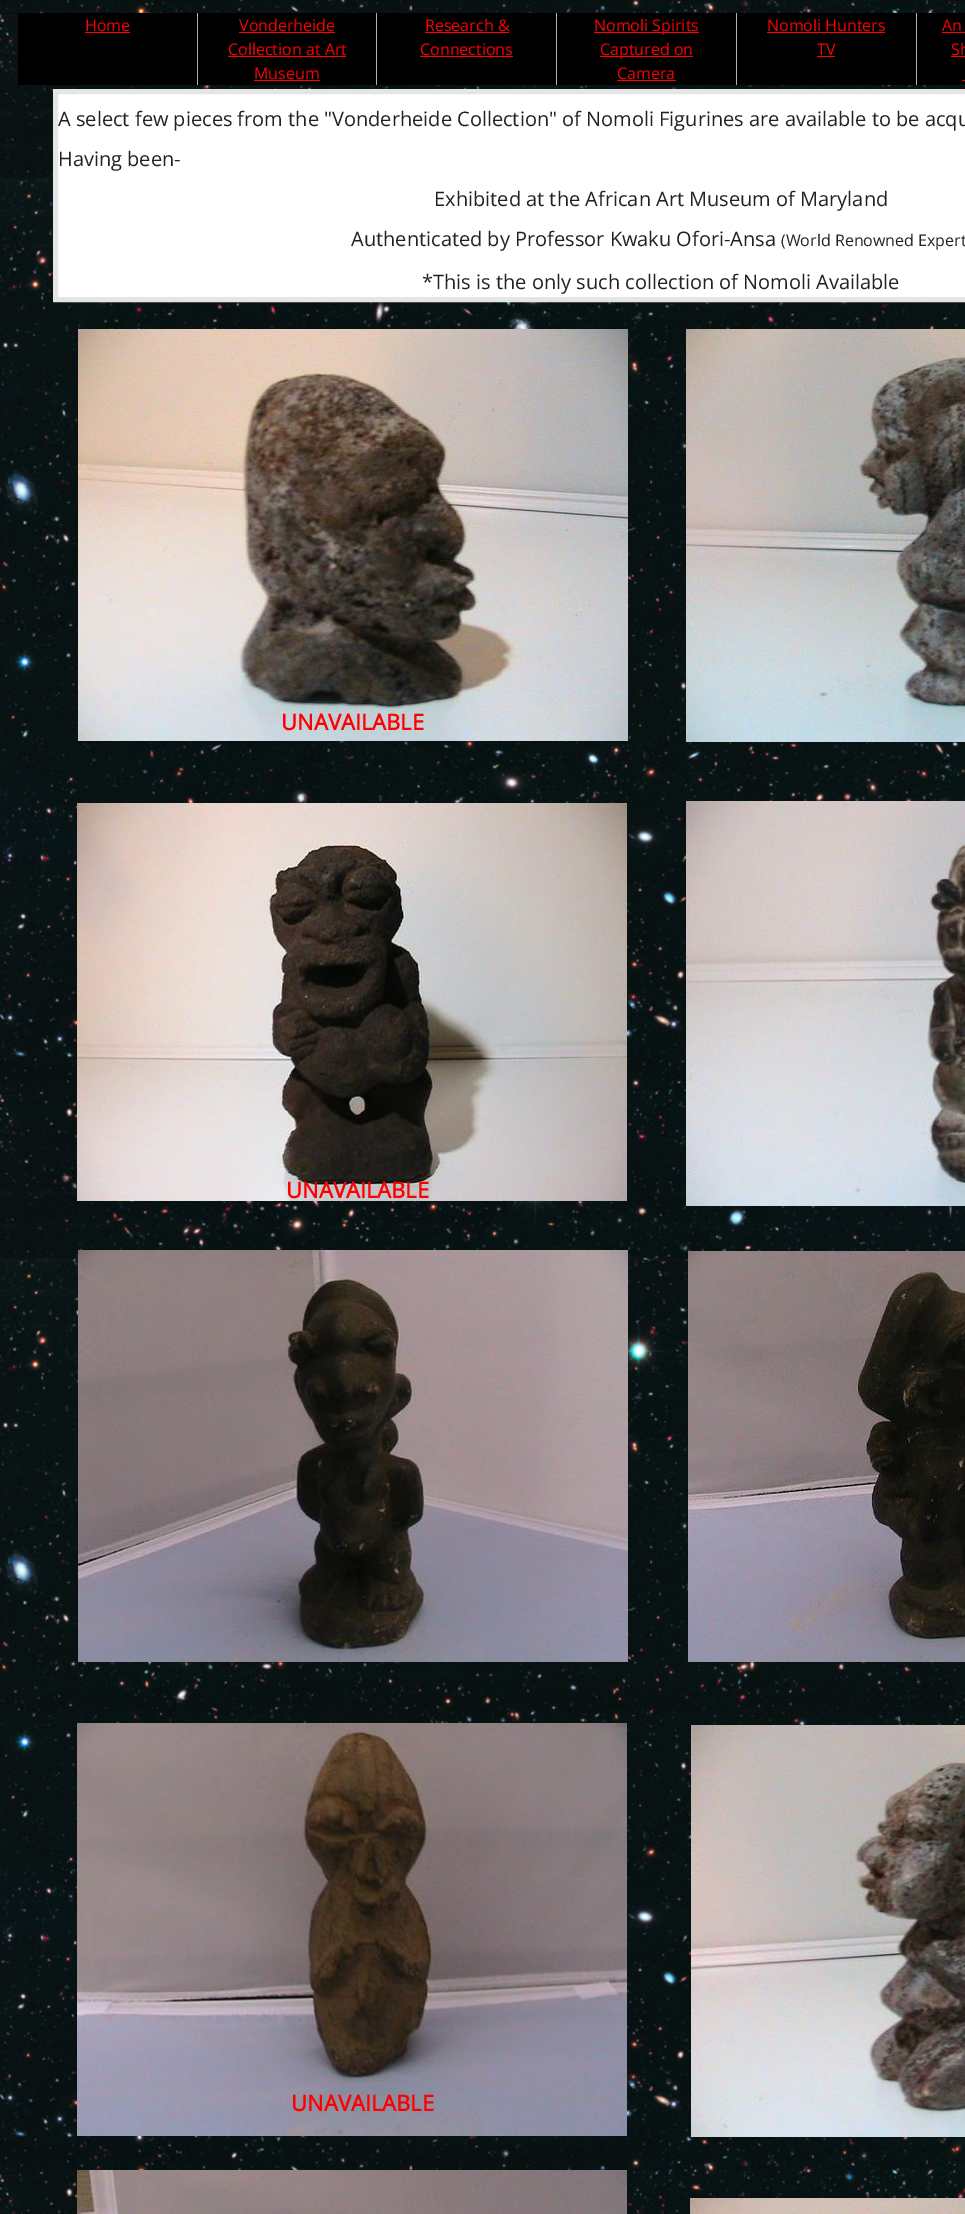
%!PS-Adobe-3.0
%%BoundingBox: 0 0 965 2214
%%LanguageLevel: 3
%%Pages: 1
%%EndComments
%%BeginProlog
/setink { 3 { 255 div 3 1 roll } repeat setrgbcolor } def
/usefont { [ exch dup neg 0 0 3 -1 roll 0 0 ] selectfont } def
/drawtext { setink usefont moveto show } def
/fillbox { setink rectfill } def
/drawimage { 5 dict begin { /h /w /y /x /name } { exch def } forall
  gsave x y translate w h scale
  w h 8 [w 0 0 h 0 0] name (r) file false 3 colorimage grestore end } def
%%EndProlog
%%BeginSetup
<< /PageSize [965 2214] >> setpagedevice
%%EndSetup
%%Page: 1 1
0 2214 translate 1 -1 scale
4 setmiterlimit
0 0 965 2214 255 255 255 fillbox
(assets/img1.rgb) 0 0 965 2214 drawimage
18 13 179 72 0 0 0 fillbox
197 13 1 72 174 174 174 fillbox
(Home) 85 31 /OpenSans-Regular 16 255 0 0 drawtext
85 32 45 1 255 0 0 fillbox
198 13 178 72 0 0 0 fillbox
376 13 1 72 174 174 174 fillbox
(Vonderheide) 239 31 /OpenSans-Regular 16 255 0 0 drawtext
239 32 96 1 255 0 0 fillbox
(Collection at Art) 228 55 /OpenSans-Regular 16 255 0 0 drawtext
228 56 118 1 255 0 0 fillbox
(Museum) 254 79 /OpenSans-Regular 16 255 0 0 drawtext
254 80 66 1 255 0 0 fillbox
377 13 179 72 0 0 0 fillbox
556 13 1 72 174 174 174 fillbox
(Research &) 425 31 /OpenSans-Regular 16 255 0 0 drawtext
425 32 84 1 255 0 0 fillbox
(Connections) 420 55 /OpenSans-Regular 16 255 0 0 drawtext
420 56 93 1 255 0 0 fillbox
557 13 179 72 0 0 0 fillbox
736 13 1 72 174 174 174 fillbox
594 32 105 1 255 0 0 fillbox
(Nomoli Spirits) 594 31 /OpenSans-Regular 16 255 0 0 drawtext
600 56 93 1 255 0 0 fillbox
(Captured on) 600 55 /OpenSans-Regular 16 255 0 0 drawtext
(Camera) 617 79 /OpenSans-Regular 16 255 0 0 drawtext
617 80 59 1 255 0 0 fillbox
737 13 179 72 0 0 0 fillbox
916 13 1 72 174 174 174 fillbox
(Nomoli Hunters) 767 31 /OpenSans-Regular 16 255 0 0 drawtext
767 32 118 1 255 0 0 fillbox
(TV) 817 55 /OpenSans-Regular 16 255 0 0 drawtext
817 56 18 1 255 0 0 fillbox
917 13 48 72 0 0 0 fillbox
(An) 942 31 /OpenSans-Regular 16 255 0 0 drawtext
942 32 23 1 255 0 0 fillbox
(Sh) 951 55 /OpenSans-Regular 16 255 0 0 drawtext
951 56 14 1 255 0 0 fillbox
962 80 3 1 255 0 0 fillbox
255 255 255 setink
55.5 91.5 moveto 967.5 91.5 lineto 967.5 299.5 lineto 55.5 299.5 lineto closepath gsave fill grestore
229 229 229 setink
5 setlinewidth
stroke
(A select few pieces from the "Vonderheide Collection" of Nomoli Figurines are available to be acqu) 58 126 /OpenSans-Regular 20 34 34 34 drawtext
(Having been-) 58 166 /OpenSans-Regular 20 34 34 34 drawtext
(Exhibited at the African Art Museum of Maryland) 434 206 /OpenSans-Regular 20 34 34 34 drawtext
(Authenticated by Professor Kwaku Ofori-Ansa) 351 246 /OpenSans-Regular 20 34 34 34 drawtext
(\(World Renowned Expert) 781 246 /OpenSans-Regular 16 34 34 34 drawtext
(*This is the only such collection of Nomoli Available) 422 289 /OpenSans-Regular 20 34 34 34 drawtext
(assets/img2.rgb) 78 329 550 412 drawimage
(assets/img3.rgb) 686 329 279 413 drawimage
(UNAVAILABLE) 281 730 /OpenSans-Bold 22 255 0 0 drawtext
(assets/img4.rgb) 77 803 550 398 drawimage
(assets/img5.rgb) 686 801 279 405 drawimage
(UNAVAILABLE) 286 1198 /OpenSans-Bold 22 255 0 0 drawtext
(assets/img6.rgb) 78 1250 550 412 drawimage
(assets/img7.rgb) 688 1251 277 411 drawimage
(assets/img8.rgb) 77 1723 550 413 drawimage
(assets/img9.rgb) 691 1725 274 412 drawimage
(UNAVAILABLE) 291 2111 /OpenSans-Bold 22 255 0 0 drawtext
(assets/img10.rgb) 77 2170 550 44 drawimage
(assets/img11.rgb) 690 2198 275 16 drawimage
showpage
%%EOF
